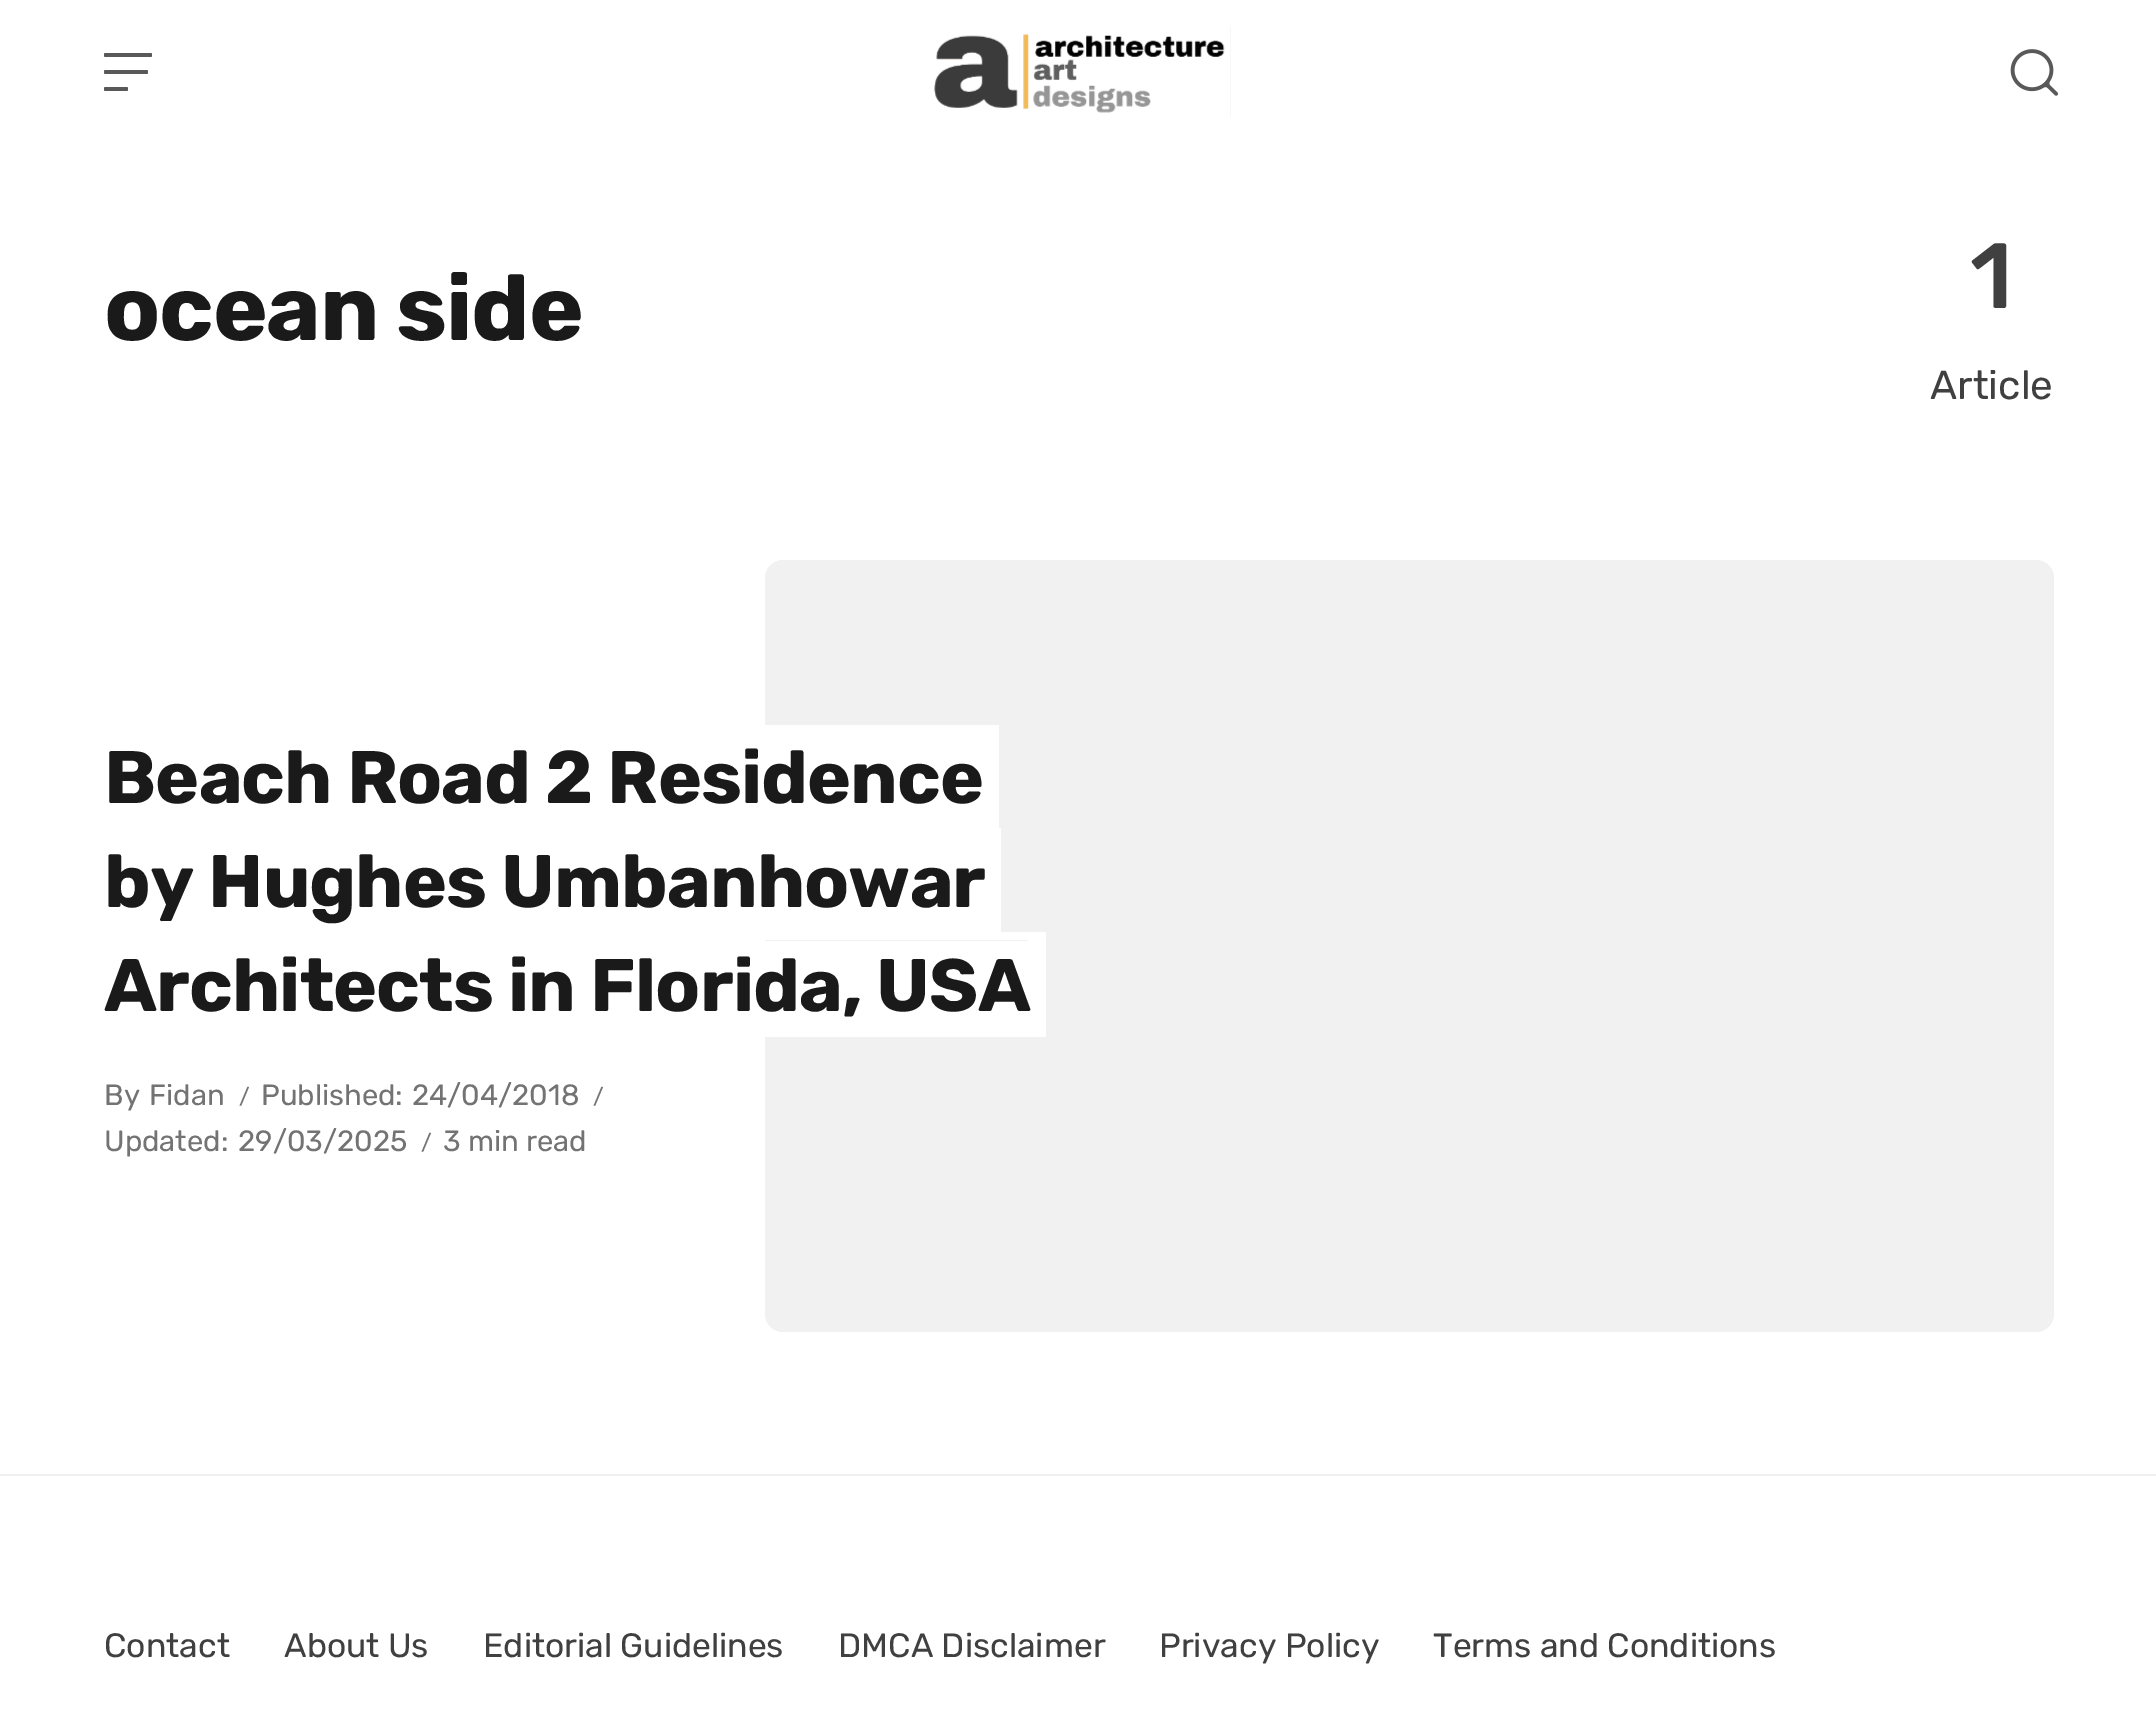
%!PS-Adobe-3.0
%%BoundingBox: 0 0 2156 1714
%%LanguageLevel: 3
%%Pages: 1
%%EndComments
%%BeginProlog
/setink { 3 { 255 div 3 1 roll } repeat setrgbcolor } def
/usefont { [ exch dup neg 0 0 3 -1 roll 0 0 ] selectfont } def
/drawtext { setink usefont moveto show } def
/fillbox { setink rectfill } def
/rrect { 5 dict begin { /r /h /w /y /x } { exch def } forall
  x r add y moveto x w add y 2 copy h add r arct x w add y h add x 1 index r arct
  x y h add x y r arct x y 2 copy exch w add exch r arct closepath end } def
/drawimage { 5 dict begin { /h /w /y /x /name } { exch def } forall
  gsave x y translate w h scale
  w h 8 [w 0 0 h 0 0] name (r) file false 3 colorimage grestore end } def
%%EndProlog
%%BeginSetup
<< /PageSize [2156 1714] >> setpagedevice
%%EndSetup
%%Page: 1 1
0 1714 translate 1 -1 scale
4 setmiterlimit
0 0 2156 1714 255 255 255 fillbox
89 89 89 setink
104 53 48 4 1.5 rrect fill
104 70 44 4 1.5 rrect fill
104 87 24 4 1.5 rrect fill
(assets/img1.rgb) 934 27 297 90 drawimage
(assets/img2.rgb) 2010 49 49 47 drawimage
/Rubik-Bold 92.5 usefont
26 26 26 setink
104 340 moveto -1.25 0 (ocean side) ashow
(1) 1970 308 /Rubik-Medium 92.5 64 64 64 drawtext
(Article) 1930 399 /Rubik-Regular 40.5 64 64 64 drawtext
241 241 241 setink
765 560 1289 772 18 rrect fill
255 255 255 setink
122 725 moveto 122 734 lineto 981 734 lineto 981 812 lineto 999 812 lineto 999 725 lineto closepath fill
122 821 moveto 122 830 lineto 999 830 lineto 999 743 lineto 981 743 lineto 981 821 lineto closepath fill
765 734 216 87 255 255 255 fillbox
/Rubik-Bold 74.2 usefont
26 26 26 setink
104 803 moveto -0.9 0 (Beach Road 2 Residence) ashow
255 255 255 setink
122 828 moveto 122 837 lineto 983 837 lineto 983 916 lineto 1001 916 lineto 1001 828 lineto closepath fill
122 925 moveto 122 934 lineto 1001 934 lineto 1001 846 lineto 983 846 lineto 983 925 lineto closepath fill
765 837 218 88 255 255 255 fillbox
26 26 26 setink
104 907 moveto -0.9 0 (by Hughes Umbanhowar) ashow
255 255 255 setink
122 932 moveto 122 940 lineto 1028 940 lineto 1028 1019 lineto 1046 1019 lineto 1046 932 lineto closepath fill
122 1028 moveto 122 1037 lineto 1046 1037 lineto 1046 950 lineto 1028 950 lineto 1028 1028 lineto closepath fill
765 941 263 87 255 255 255 fillbox
26 26 26 setink
104 1011 moveto -0.9 0 (Architects in Florida, USA) ashow
(By) 104 1105 /Rubik-Regular 29.25 115 115 115 drawtext
(Fidan) 149 1105 /Rubik-Regular 29.25 115 115 115 drawtext
(/) 239 1104 /Rubik-Regular 22 115 115 115 drawtext
(Published:) 261 1105 /Rubik-Regular 29.25 115 115 115 drawtext
(24/04/2018) 412 1105 /Rubik-Regular 29.25 115 115 115 drawtext
(/) 593 1104 /Rubik-Regular 22 115 115 115 drawtext
(Updated:) 104 1151 /Rubik-Regular 29.25 115 115 115 drawtext
(29/03/2025) 238 1151 /Rubik-Regular 29.25 115 115 115 drawtext
(/) 421 1150 /Rubik-Regular 22 115 115 115 drawtext
(3 min read) 443 1151 /Rubik-Regular 29.25 115 115 115 drawtext
0 1474 2156 2 240 240 240 fillbox
(Contact) 104 1657 /Rubik-Regular 33.75 64 64 64 drawtext
(About Us) 284 1657 /Rubik-Regular 33.75 64 64 64 drawtext
(Editorial Guidelines) 483 1657 /Rubik-Regular 33.75 64 64 64 drawtext
(DMCA Disclaimer) 838 1657 /Rubik-Regular 33.75 64 64 64 drawtext
(Privacy Policy) 1159 1657 /Rubik-Regular 33.75 64 64 64 drawtext
(Terms and Conditions) 1433 1657 /Rubik-Regular 33.75 64 64 64 drawtext
showpage
%%EOF
